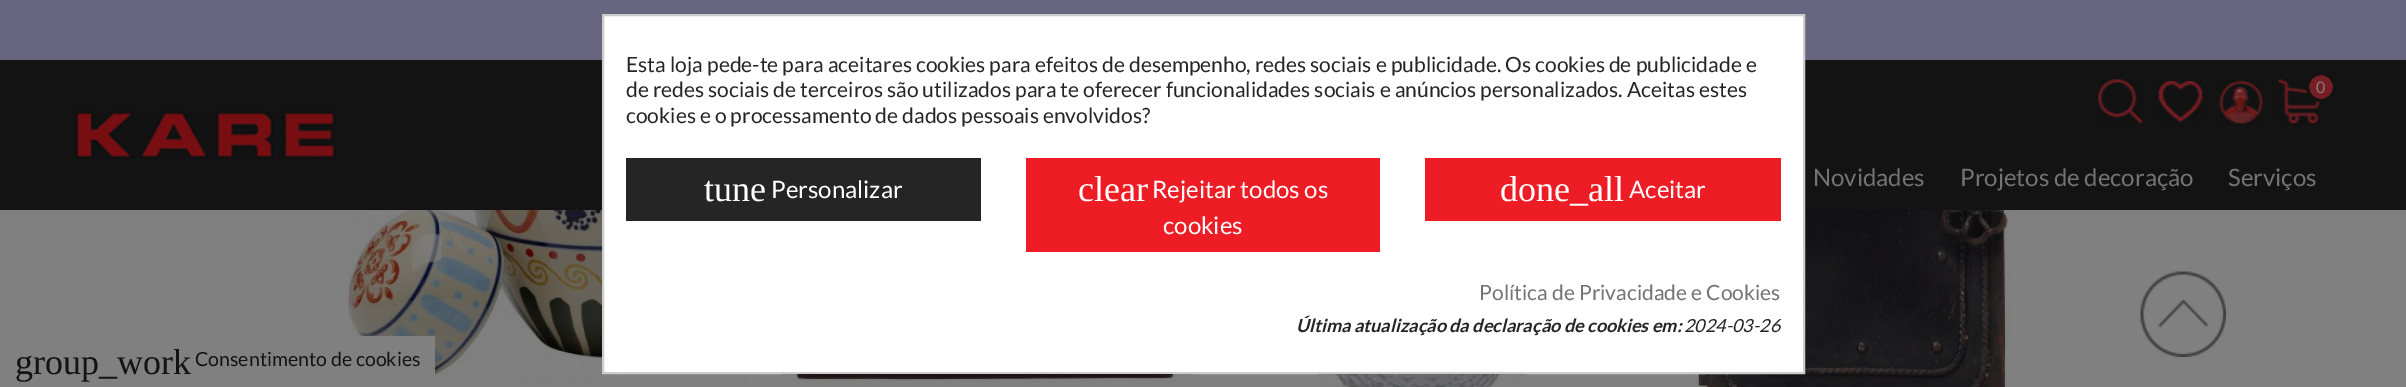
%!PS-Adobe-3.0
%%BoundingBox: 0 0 2406 387
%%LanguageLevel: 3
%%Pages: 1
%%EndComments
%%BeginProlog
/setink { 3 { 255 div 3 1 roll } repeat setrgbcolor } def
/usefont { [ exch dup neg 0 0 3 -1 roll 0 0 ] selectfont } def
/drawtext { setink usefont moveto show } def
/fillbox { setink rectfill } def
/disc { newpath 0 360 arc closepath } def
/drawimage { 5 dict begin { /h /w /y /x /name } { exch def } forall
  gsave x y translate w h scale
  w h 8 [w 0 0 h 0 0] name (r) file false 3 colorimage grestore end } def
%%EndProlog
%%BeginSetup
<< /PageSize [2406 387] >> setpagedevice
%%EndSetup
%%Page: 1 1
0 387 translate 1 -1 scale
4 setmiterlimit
0 0 2406 387 128 128 128 fillbox
0 0 2406 60 103 101 128 fillbox
0 60 2406 150 19 19 19 fillbox
(assets/img6.rgb) 348 210 411 172 drawimage
(assets/img9.rgb) 1691 210 320 177 drawimage
255 255 255 setink
603 15 moveto 1804 15 lineto 1804 373 lineto 603 373 lineto closepath gsave fill grestore
204 204 204 setink
2 setlinewidth
stroke
(Esta loja pede-te para aceitares cookies para efeitos de desempenho, redes sociais e publicidade. Os cookies de publicidade e) 626 72 /Lato-Regular 21 37 37 37 drawtext
(de redes sociais de terceiros são utilizados para te oferecer funcionalidades sociais e anúncios personalizados. Aceitas estes) 626 97 /Lato-Regular 21 37 37 37 drawtext
(cookies e o processamento de dados pessoais envolvidos?) 626 123 /Lato-Regular 21 37 37 37 drawtext
626 158 355 63 37 37 37 fillbox
(tune) 704 201 /LiberationSerif-Regular 36 255 255 255 drawtext
(Personalizar) 771 198 /Lato-Regular 24 255 255 255 drawtext
1026 158 354 94 238 28 37 fillbox
(clear) 1078 201 /LiberationSerif-Regular 36 255 255 255 drawtext
(Rejeitar todos os) 1152 198 /Lato-Regular 24 255 255 255 drawtext
(cookies) 1163 234 /Lato-Regular 24 255 255 255 drawtext
1425 158 356 63 238 28 37 fillbox
(done_all) 1500 201 /LiberationSerif-Regular 36 255 255 255 drawtext
(Aceitar) 1629 198 /Lato-Regular 24 255 255 255 drawtext
(Política de Privacidade e Cookies) 1479 300 /Lato-Regular 21 115 115 115 drawtext
(Última atualização da declaração de cookies em:) 1296 332 /Lato-BoldItalic 18 37 37 37 drawtext
(2024-03-26) 1684 332 /Lato-Italic 18 37 37 37 drawtext
(assets/img1.rgb) 75 111 261 48 drawimage
(assets/img2.rgb) 2098 79 45 44 drawimage
(assets/img3.rgb) 2158 81 45 41 drawimage
(assets/img4.rgb) 2219 80 44 45 drawimage
(assets/img5.rgb) 2278 79 42 44 drawimage
118 30 36 setink
2321 87 13.5 disc gsave fill grestore
19 19 19 setink
3 setlinewidth
stroke
(0) 2316 93 /Lato-Regular 16 128 128 128 drawtext
(Novidades) 1813 186 /Lato-Regular 24 115 115 115 drawtext
(Projetos de decoração) 1960 186 /Lato-Regular 24 115 115 115 drawtext
(Serviços) 2228 186 /Lato-Regular 24 115 115 115 drawtext
(assets/img7.rgb) 781 374 412 8 drawimage
(assets/img8.rgb) 1318 374 207 13 drawimage
(assets/img10.rgb) 2140 271 86 86 drawimage
359 336 76 46 128 128 128 fillbox
(group_work) 15 374 /LiberationSerif-Regular 36 19 19 19 drawtext
(Consentimento de cookies) 195 366 /Lato-Regular 19.5 19 19 19 drawtext
showpage
%%EOF
